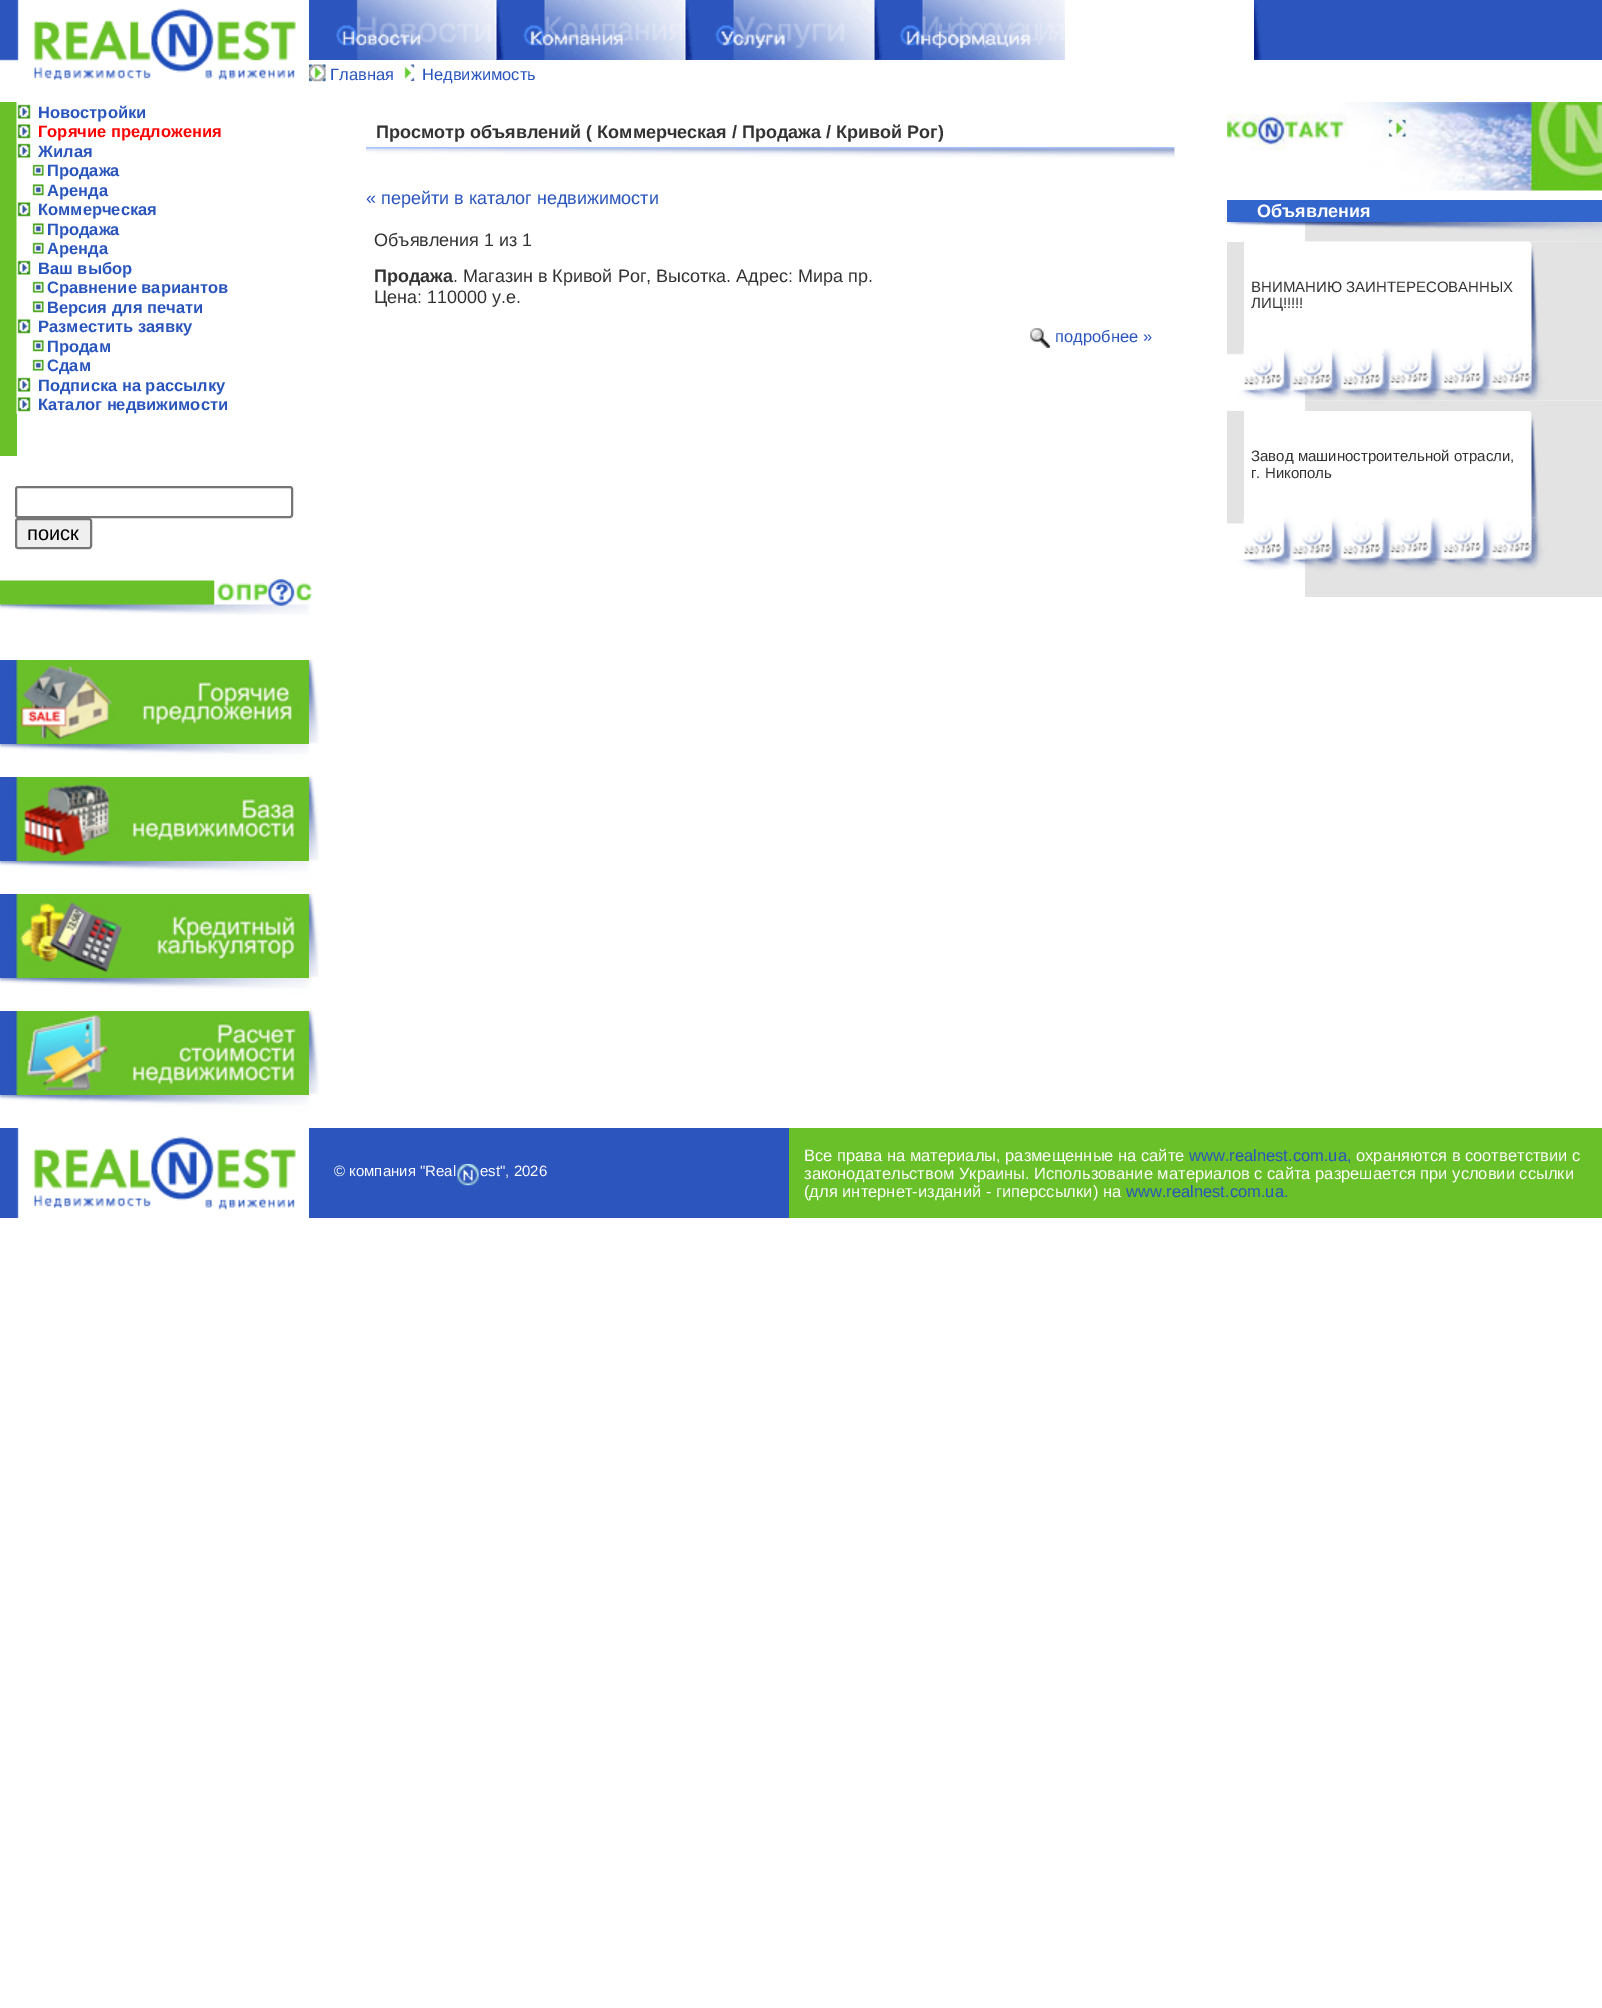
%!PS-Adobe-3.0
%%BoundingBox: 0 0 1602 2008
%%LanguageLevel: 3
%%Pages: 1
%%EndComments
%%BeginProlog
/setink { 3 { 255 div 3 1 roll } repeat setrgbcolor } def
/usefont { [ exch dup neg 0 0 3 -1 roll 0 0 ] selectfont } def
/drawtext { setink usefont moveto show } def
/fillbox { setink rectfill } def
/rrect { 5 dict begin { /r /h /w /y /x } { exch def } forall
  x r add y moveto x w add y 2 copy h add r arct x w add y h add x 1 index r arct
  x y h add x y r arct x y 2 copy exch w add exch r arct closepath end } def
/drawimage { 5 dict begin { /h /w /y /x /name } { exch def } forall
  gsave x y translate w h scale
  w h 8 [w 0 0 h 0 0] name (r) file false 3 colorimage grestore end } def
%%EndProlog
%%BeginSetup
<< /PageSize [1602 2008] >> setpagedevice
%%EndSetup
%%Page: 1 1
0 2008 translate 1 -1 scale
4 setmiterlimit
0 0 1602 2008 255 255 255 fillbox
(assets/img1.rgb) 0 0 296 80 drawimage
(assets/img2.rgb) 309 0 188 60 drawimage
(assets/img3.rgb) 496 0 190 60 drawimage
(assets/img4.rgb) 685 0 190 60 drawimage
(assets/img5.rgb) 874 0 191 60 drawimage
(assets/img6.rgb) 1254 0 13 60 drawimage
1267 0 335 60 44 86 190 fillbox
(assets/img7.rgb) 309 64 17 18 drawimage
(Главная) 330 80 /LiberationSans-Regular 16.5 41 85 189 drawtext
(assets/img8.rgb) 404 64 11 17 drawimage
(Недвижимость) 422 80 /LiberationSans-Regular 16.5 41 85 189 drawtext
0 102 17 354 105 192 40 fillbox
(assets/img9.rgb) 16 102 15 20 drawimage
(Новостройки) 38 118 /LiberationSans-Bold 16.5 41 85 189 drawtext
(assets/img10.rgb) 16 121 15 20 drawimage
(Горячие предложения) 38 137 /LiberationSans-Bold 16.5 255 0 0 drawtext
(assets/img9.rgb) 16 141 15 20 drawimage
(Жилая) 38 157 /LiberationSans-Bold 16.5 41 85 189 drawtext
(assets/img11.rgb) 16 160 1 20 drawimage
(assets/img12.rgb) 32 164 12 12 drawimage
(Продажа) 47 176 /LiberationSans-Bold 16.5 41 85 189 drawtext
(assets/img13.rgb) 16 180 1 20 drawimage
(assets/img14.rgb) 32 184 12 12 drawimage
(Аренда) 47 196 /LiberationSans-Bold 16.5 41 85 189 drawtext
(assets/img10.rgb) 16 199 15 20 drawimage
(Коммерческая) 38 215 /LiberationSans-Bold 16.5 41 85 189 drawtext
(assets/img13.rgb) 16 219 1 20 drawimage
(assets/img14.rgb) 32 223 12 12 drawimage
(Продажа) 47 235 /LiberationSans-Bold 16.5 41 85 189 drawtext
(assets/img11.rgb) 16 238 1 20 drawimage
(assets/img12.rgb) 32 242 12 12 drawimage
(Аренда) 47 254 /LiberationSans-Bold 16.5 41 85 189 drawtext
(assets/img9.rgb) 16 258 15 20 drawimage
(Ваш выбор) 38 274 /LiberationSans-Bold 16.5 41 85 189 drawtext
(assets/img11.rgb) 16 277 1 20 drawimage
(assets/img12.rgb) 32 281 12 12 drawimage
(Сравнение вариантов) 47 293 /LiberationSans-Bold 16.5 41 85 189 drawtext
(assets/img13.rgb) 16 297 1 20 drawimage
(assets/img14.rgb) 32 301 12 12 drawimage
(Версия для печати) 47 313 /LiberationSans-Bold 16.5 41 85 189 drawtext
(assets/img10.rgb) 16 316 15 20 drawimage
(Разместить заявку) 38 332 /LiberationSans-Bold 16.5 41 85 189 drawtext
(assets/img13.rgb) 16 336 1 20 drawimage
(assets/img14.rgb) 32 340 12 12 drawimage
(Продам) 47 352 /LiberationSans-Bold 16.5 41 85 189 drawtext
(assets/img11.rgb) 16 355 1 20 drawimage
(assets/img12.rgb) 32 359 12 12 drawimage
(Сдам) 47 371 /LiberationSans-Bold 16.5 41 85 189 drawtext
(assets/img9.rgb) 16 375 15 20 drawimage
(Подписка на рассылку) 38 391 /LiberationSans-Bold 16.5 41 85 189 drawtext
(assets/img10.rgb) 16 394 15 20 drawimage
(Каталог недвижимости) 38 410 /LiberationSans-Bold 16.5 41 85 189 drawtext
118 118 118 setink
2 setlinewidth
16 487 276 30 2 rrect stroke
239 239 239 setink
16 519 75 29 2 rrect gsave fill grestore
118 118 118 setink
stroke
(поиск) 27 540 /LiberationSans-Regular 20 0 0 0 drawtext
(assets/img15.rgb) 0 580 215 26 drawimage
(assets/img16.rgb) 214 579 99 27 drawimage
(assets/img17.rgb) 0 606 310 9 drawimage
(assets/img18.rgb) 0 660 309 84 drawimage
(assets/img19.rgb) 309 660 10 84 drawimage
(assets/img20.rgb) 0 744 312 33 drawimage
(assets/img21.rgb) 0 777 309 84 drawimage
(assets/img19.rgb) 309 777 10 84 drawimage
(assets/img20.rgb) 0 861 312 33 drawimage
(assets/img22.rgb) 0 894 309 84 drawimage
(assets/img19.rgb) 309 894 10 84 drawimage
(assets/img20.rgb) 0 978 312 33 drawimage
(assets/img23.rgb) 0 1011 309 84 drawimage
(assets/img19.rgb) 309 1011 10 84 drawimage
(assets/img20.rgb) 0 1095 312 33 drawimage
(Просмотр объявлений \( Коммерческая / Продажа / Кривой Рог\)) 376 138 /LiberationSans-Bold 18 51 51 51 drawtext
(assets/img24.rgb) 366 147 809 11 drawimage
(« перейти в каталог недвижимости) 366 204 /LiberationSans-Regular 18 41 85 189 drawtext
(Объявления 1 из 1) 374 246 /LiberationSans-Regular 18 51 51 51 drawtext
(Продажа) 374 282 /LiberationSans-Bold 18 51 51 51 drawtext
(. Магазин в Кривой Рог, Высотка. Адрес: Мира пр.) 453 282 /LiberationSans-Regular 18 51 51 51 drawtext
(Цена: 110000 у.е.) 374 303 /LiberationSans-Regular 18 51 51 51 drawtext
(assets/img25.rgb) 1030 328 20 20 drawimage
(подробнее ») 1055 342 /LiberationSans-Regular 16.5 41 85 189 drawtext
(assets/img26.rgb) 1227 102 375 89 drawimage
1227 200 375 22 51 102 204 fillbox
(Объявления) 1257 217 /LiberationSans-Bold 18 255 255 255 drawtext
(assets/img27.rgb) 1227 222 375 20 drawimage
1227 242 17 106 227 227 227 fillbox
(ВНИМАНИЮ ЗАИНТЕРЕСОВАННЫХ) 1251 292 /LiberationSans-Regular 15 51 51 51 drawtext
(ЛИЦ!!!!!) 1251 308 /LiberationSans-Regular 15 51 51 51 drawtext
(assets/img28.rgb) 1530 241 72 107 drawimage
(assets/img29.rgb) 1227 348 375 53 drawimage
(assets/img30.rgb) 1304 400 298 11 drawimage
1227 411 17 107 227 227 227 fillbox
(Завод машиностроительной отрасли,) 1251 461 /LiberationSans-Regular 15 51 51 51 drawtext
(г. Никополь) 1251 478 /LiberationSans-Regular 15 51 51 51 drawtext
1530 411 72 107 227 227 227 fillbox
(assets/img31.rgb) 1530 412 8 106 drawimage
(assets/img32.rgb) 1227 517 375 53 drawimage
(assets/img33.rgb) 1304 570 298 11 drawimage
1305 580 297 17 227 227 227 fillbox
(assets/img34.rgb) 0 1128 296 90 drawimage
309 1128 480 90 44 86 190 fillbox
(© компания "Real) 334 1176 /LiberationSans-Regular 15 255 255 255 drawtext
(assets/img35.rgb) 457 1164 22 22 drawimage
(est", 2026) 480 1176 /LiberationSans-Regular 15 255 255 255 drawtext
789 1128 813 90 105 192 40 fillbox
(Все права на материалы, размещенные на сайте) 804 1161 /LiberationSans-Regular 16.5 255 255 255 drawtext
(www.realnest.com.ua,) 1189 1161 /LiberationSans-Regular 16.5 41 85 189 drawtext
(охраняются в соответствии с) 1356 1161 /LiberationSans-Regular 16.5 255 255 255 drawtext
(законодательством Украины. Использование материалов с сайта разрешается при условии ссылки) 804 1179 /LiberationSans-Regular 16.5 255 255 255 drawtext
(\(для интернет-изданий - гиперссылки\) на) 804 1197 /LiberationSans-Regular 16.5 255 255 255 drawtext
(www.realnest.com.ua.) 1126 1197 /LiberationSans-Regular 16.5 41 85 189 drawtext
showpage
%%EOF
